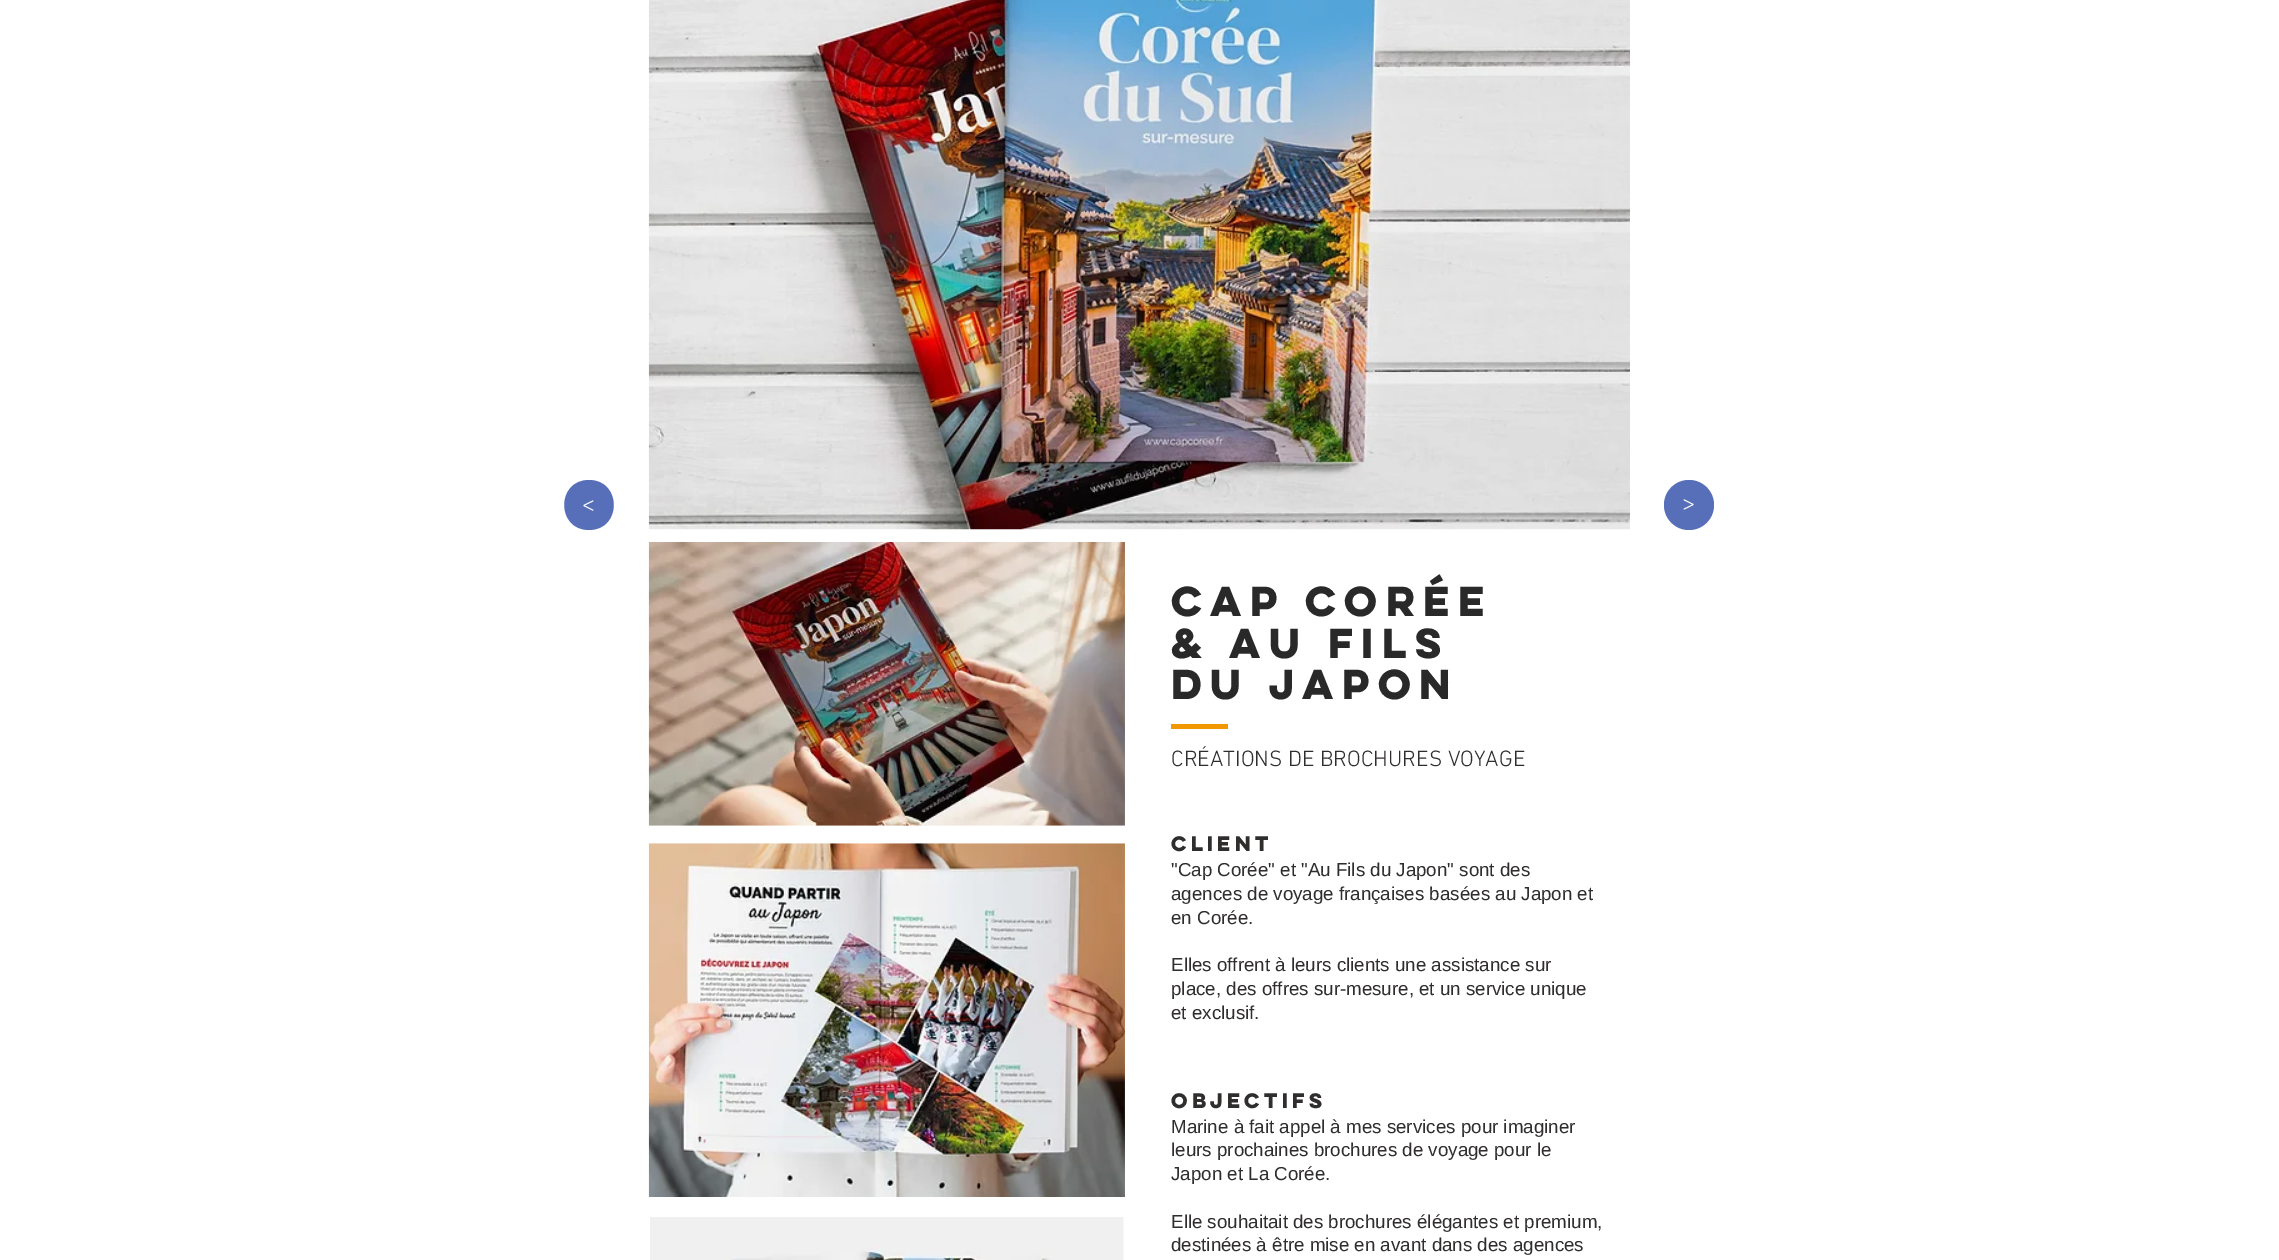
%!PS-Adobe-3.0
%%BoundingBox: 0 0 2279 1260
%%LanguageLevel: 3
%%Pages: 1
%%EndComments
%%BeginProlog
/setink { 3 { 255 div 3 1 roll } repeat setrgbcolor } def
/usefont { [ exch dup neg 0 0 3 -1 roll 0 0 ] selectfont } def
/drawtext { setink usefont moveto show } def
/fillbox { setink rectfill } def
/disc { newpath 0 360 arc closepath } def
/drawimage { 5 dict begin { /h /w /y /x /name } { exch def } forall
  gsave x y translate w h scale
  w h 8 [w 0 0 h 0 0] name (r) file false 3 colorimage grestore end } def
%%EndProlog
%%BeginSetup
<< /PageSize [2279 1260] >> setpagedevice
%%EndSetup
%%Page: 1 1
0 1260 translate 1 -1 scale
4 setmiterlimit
0 0 2279 1260 255 255 255 fillbox
86 111 184 setink
589 530 moveto 556 530 556 480 589 480 curveto 622 480 622 530 589 530 curveto closepath fill
/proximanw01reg-Regular 22.5 usefont
255 255 255 setink
gsave 594 498 translate 180 rotate 0 0 moveto (>) show grestore
(assets/img1.rgb) 648 0 982 530 drawimage
86 111 184 setink
1689 505 25 disc fill
(>) 1683 512 /proximanw01reg-Regular 22.5 255 255 255 drawtext
(assets/img2.rgb) 648 542 477 284 drawimage
(CAP CORÉE) 1171 616 /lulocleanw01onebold-Bold 37.5 41 41 41 drawtext
(& AU FILS) 1171 658 /lulocleanw01onebold-Bold 37.5 41 41 41 drawtext
(DU JAPON) 1171 699 /lulocleanw01onebold-Bold 37.5 41 41 41 drawtext
1171 724 57 5 241 152 0 fillbox
(CRÉATIONS DE BROCHURES VOYAGE) 1171 766 /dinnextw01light-Light 22.5 48 45 45 drawtext
(assets/img3.rgb) 648 843 477 354 drawimage
(CLIENT) 1171 851 /lulocleanw01onebold-Bold 18.75 48 45 45 drawtext
("Cap Corée" et "Au Fils du Japon" sont des) 1171 876 /LiberationSans-Regular 18.75 48 45 45 drawtext
(agences de voyage françaises basées au Japon et) 1171 900 /LiberationSans-Regular 18.75 48 45 45 drawtext
(en Corée.) 1171 924 /LiberationSans-Regular 18.75 48 45 45 drawtext
(Elles offrent à leurs clients une assistance sur) 1171 971 /LiberationSans-Regular 18.75 48 45 45 drawtext
(place, des offres sur-mesure, et un service unique) 1171 995 /LiberationSans-Regular 18.75 48 45 45 drawtext
(et exclusif.) 1171 1019 /LiberationSans-Regular 18.75 48 45 45 drawtext
(assets/img4.rgb) 650 1217 474 43 drawimage
(OBJECTIFS) 1171 1108 /lulocleanw01onebold-Bold 18.75 48 45 45 drawtext
(Marine à fait appel à mes services pour imaginer) 1171 1133 /LiberationSans-Regular 18.75 48 45 45 drawtext
(leurs prochaines brochures de voyage pour le) 1171 1156 /LiberationSans-Regular 18.75 48 45 45 drawtext
(Japon et La Corée.) 1171 1180 /LiberationSans-Regular 18.75 48 45 45 drawtext
(Elle souhaitait des brochures élégantes et premium,) 1171 1228 /LiberationSans-Regular 18.75 48 45 45 drawtext
(destinées à être mise en avant dans des agences) 1171 1251 /LiberationSans-Regular 18.75 48 45 45 drawtext
showpage
%%EOF
